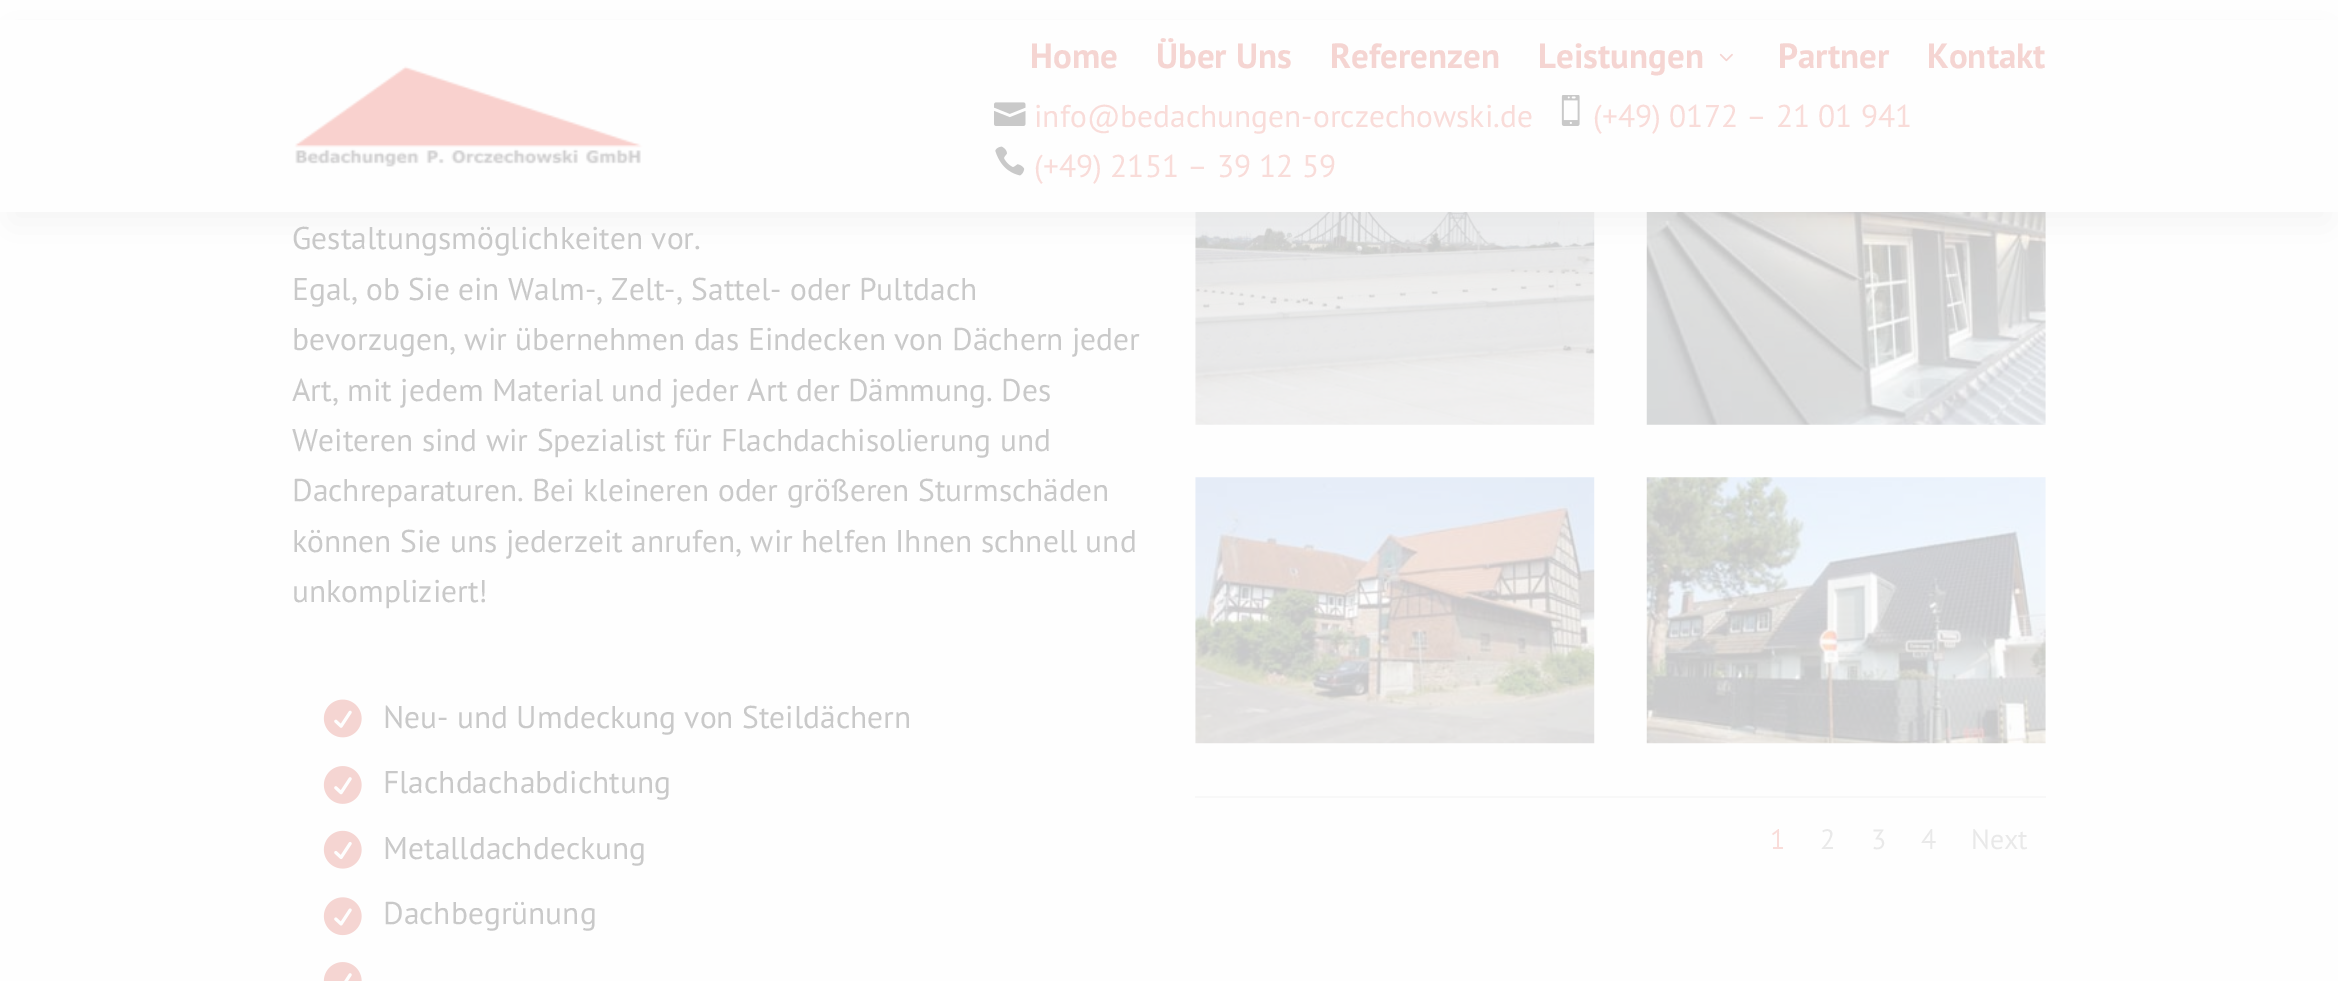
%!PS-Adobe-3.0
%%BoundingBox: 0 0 2338 981
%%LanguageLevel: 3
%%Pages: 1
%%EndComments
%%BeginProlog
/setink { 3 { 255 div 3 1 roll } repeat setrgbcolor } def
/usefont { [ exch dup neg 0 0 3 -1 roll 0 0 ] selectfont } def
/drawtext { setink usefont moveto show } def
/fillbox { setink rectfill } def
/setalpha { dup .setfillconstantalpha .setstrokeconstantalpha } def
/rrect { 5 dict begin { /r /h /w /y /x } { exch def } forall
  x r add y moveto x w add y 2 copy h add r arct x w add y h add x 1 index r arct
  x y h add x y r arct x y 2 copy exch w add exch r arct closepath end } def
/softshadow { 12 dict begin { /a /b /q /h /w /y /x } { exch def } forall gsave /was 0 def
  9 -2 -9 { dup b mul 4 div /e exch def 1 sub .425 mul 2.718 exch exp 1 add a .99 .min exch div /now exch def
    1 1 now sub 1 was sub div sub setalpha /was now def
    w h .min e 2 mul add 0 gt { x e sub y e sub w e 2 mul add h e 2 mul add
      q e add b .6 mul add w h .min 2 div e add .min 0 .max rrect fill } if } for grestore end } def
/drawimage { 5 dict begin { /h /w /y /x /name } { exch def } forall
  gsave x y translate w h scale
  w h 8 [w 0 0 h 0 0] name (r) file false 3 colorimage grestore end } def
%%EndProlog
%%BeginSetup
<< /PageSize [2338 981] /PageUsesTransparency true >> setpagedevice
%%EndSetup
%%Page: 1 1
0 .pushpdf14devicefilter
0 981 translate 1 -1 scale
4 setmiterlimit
0 0 2338 981 254 254 254 fillbox
(assets/img11.rgb) 1195 212 400 213 drawimage
(assets/img12.rgb) 1646 212 400 213 drawimage
201 201 201 setink
11 32 2317 190 0 17.5 0.2 softshadow
0 20 2338 192 254 254 254 fillbox
(assets/img1.rgb) 294 66 349 101 drawimage
(Home) 1030 68 /PTSans-Bold 35 245 213 210 drawtext
(Über Uns) 1156 68 /PTSans-Bold 35 245 213 210 drawtext
(Referenzen) 1330 68 /PTSans-Bold 35 245 213 210 drawtext
(Leistungen) 1538 68 /PTSans-Bold 35 245 213 210 drawtext
(assets/img2.rgb) 1719 53 14 9 drawimage
(Partner) 1778 68 /PTSans-Bold 35 245 213 210 drawtext
(Kontakt) 1927 68 /PTSans-Bold 35 245 213 210 drawtext
(assets/img3.rgb) 994 102 32 24 drawimage
(info@bedachungen-orczechowski.de) 1034 127 /PTSans-Regular 31.5 249 220 217 drawtext
(assets/img4.rgb) 1561 95 19 31 drawimage
(\(+49\) 0172 – 21 01 941) 1593 127 /PTSans-Regular 31.5 249 220 217 drawtext
(assets/img5.rgb) 995 146 30 30 drawimage
(\(+49\) 2151 – 39 12 59) 1034 177 /PTSans-Regular 31.5 249 220 217 drawtext
(Gestaltungsmöglichkeiten vor.) 292 249 /PTSans-Regular 31.5 201 201 201 drawtext
(Egal, ob Sie ein Walm-, Zelt-, Sattel- oder Pultdach) 292 300 /PTSans-Regular 31.5 201 201 201 drawtext
(bevorzugen, wir übernehmen das Eindecken von Dächern jeder) 292 350 /PTSans-Regular 31.5 201 201 201 drawtext
(Art, mit jedem Material und jeder Art der Dämmung. Des) 292 401 /PTSans-Regular 31.5 201 201 201 drawtext
(Weiteren sind wir Spezialist für Flachdachisolierung und) 292 451 /PTSans-Regular 31.5 201 201 201 drawtext
(Dachreparaturen. Bei kleineren oder größeren Sturmschäden) 292 501 /PTSans-Regular 31.5 201 201 201 drawtext
(können Sie uns jederzeit anrufen, wir helfen Ihnen schnell und) 292 552 /PTSans-Regular 31.5 201 201 201 drawtext
(unkompliziert!) 292 602 /PTSans-Regular 31.5 201 201 201 drawtext
(assets/img6.rgb) 323 699 39 39 drawimage
(Neu- und Umdeckung von Steildächern) 383 728 /PTSans-Regular 31.5 201 201 201 drawtext
(assets/img7.rgb) 323 766 39 38 drawimage
(Flachdachabdichtung) 383 793 /PTSans-Regular 31.5 201 201 201 drawtext
(assets/img8.rgb) 323 830 39 39 drawimage
(Metalldachdeckung) 383 859 /PTSans-Regular 31.5 201 201 201 drawtext
(assets/img9.rgb) 323 897 39 39 drawimage
(Dachbegrünung) 383 924 /PTSans-Regular 31.5 201 201 201 drawtext
(assets/img10.rgb) 323 962 39 19 drawimage
(assets/img13.rgb) 1195 477 400 267 drawimage
(assets/img14.rgb) 1646 477 400 267 drawimage
1195 796 851 2 248 248 248 fillbox
(1) 1770 849 /PTSans-Regular 28 249 220 217 drawtext
(2) 1820 849 /PTSans-Regular 28 233 233 233 drawtext
(3) 1871 849 /PTSans-Regular 28 233 233 233 drawtext
(4) 1921 849 /PTSans-Regular 28 233 233 233 drawtext
(Next) 1971 849 /PTSans-Regular 28 233 233 233 drawtext
.poppdf14devicefilter showpage
%%EOF
